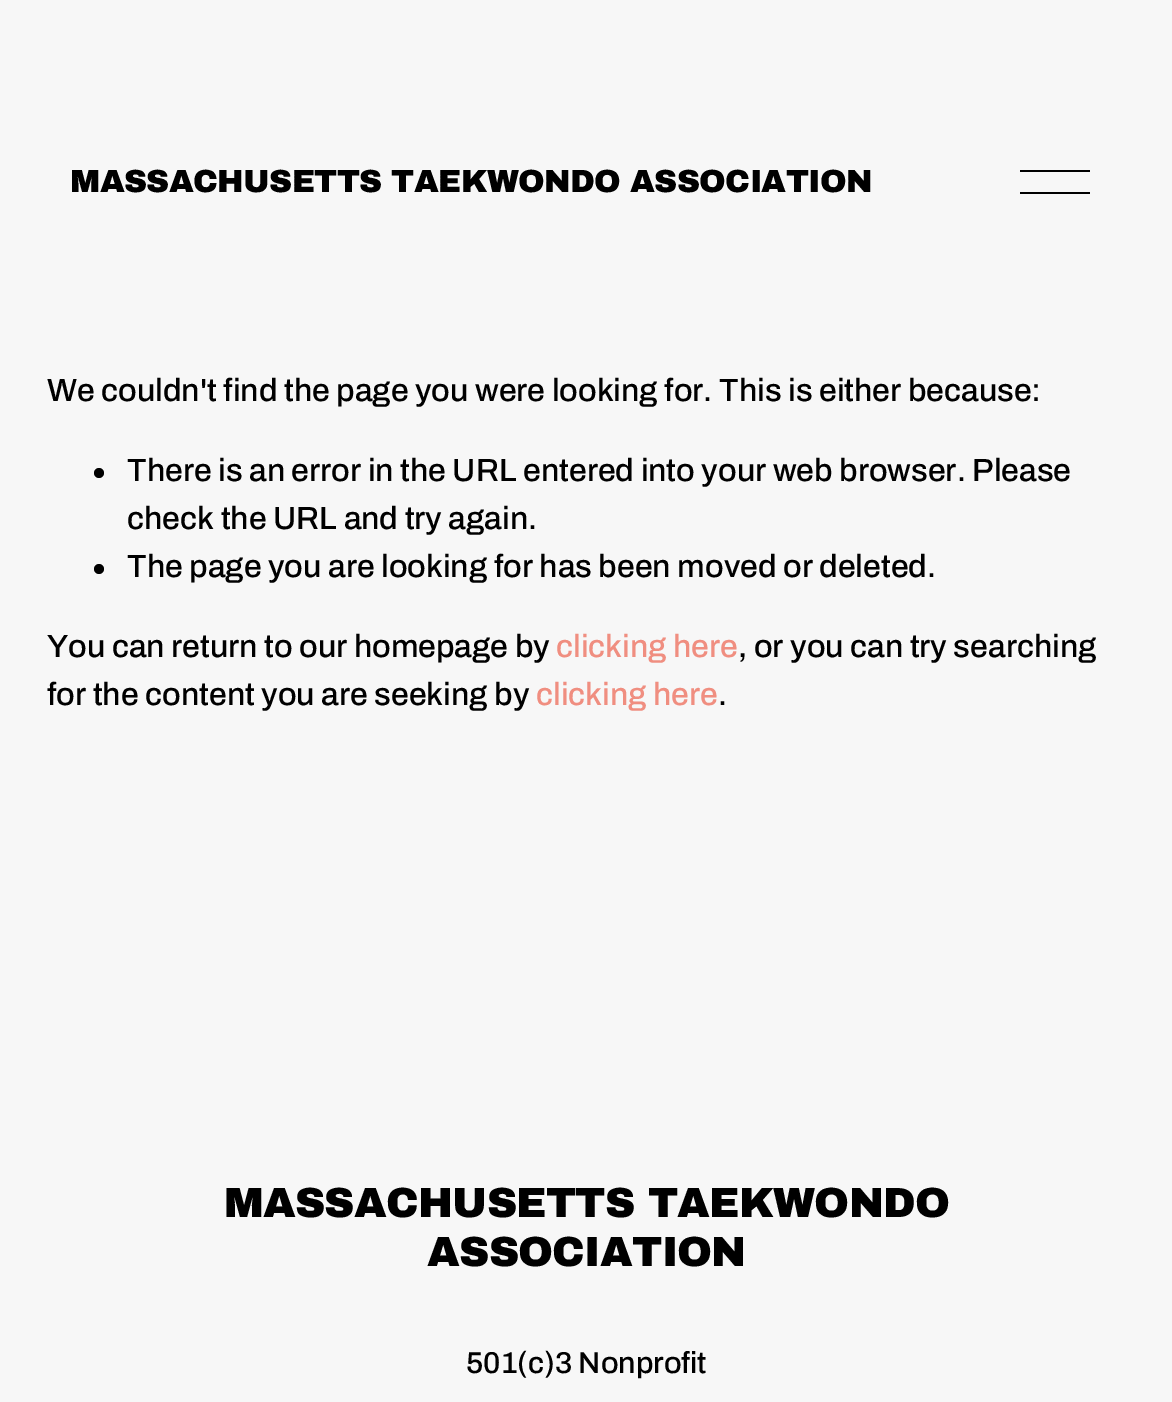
%!PS-Adobe-3.0
%%BoundingBox: 0 0 1172 1402
%%LanguageLevel: 3
%%Pages: 1
%%EndComments
%%BeginProlog
/setink { 3 { 255 div 3 1 roll } repeat setrgbcolor } def
/usefont { [ exch dup neg 0 0 3 -1 roll 0 0 ] selectfont } def
/drawtext { setink usefont moveto show } def
/fillbox { setink rectfill } def
/disc { newpath 0 360 arc closepath } def
%%EndProlog
%%BeginSetup
<< /PageSize [1172 1402] >> setpagedevice
%%EndSetup
%%Page: 1 1
0 1402 translate 1 -1 scale
4 setmiterlimit
0 0 1172 1402 247 247 247 fillbox
/ArchivoBlack-Black 32 usefont
0 0 0 setink
70 192 moveto -0.65 0 (MASSACHUSETTS TAEKWONDO ASSOCIATION) ashow
1020 170 70 2 0 0 0 fillbox
1020 192 70 2 0 0 0 fillbox
(We couldn't find the page you were looking for. This is either because:) 47 401 /Archivo-Medium 32 0 0 0 drawtext
99 473 5 disc fill
(There is an error in the URL entered into your web browser. Please) 127 481 /Archivo-Medium 32 0 0 0 drawtext
(check the URL and try again.) 127 529 /Archivo-Medium 32 0 0 0 drawtext
99 569 5 disc fill
(The page you are looking for has been moved or deleted.) 127 577 /Archivo-Medium 32 0 0 0 drawtext
(You can return to our homepage by) 47 657 /Archivo-Medium 32 0 0 0 drawtext
(clicking here) 556 657 /Archivo-Medium 32 240 142 128 drawtext
(, or you can try searching) 738 657 /Archivo-Medium 32 0 0 0 drawtext
(for the content you are seeking by) 47 705 /Archivo-Medium 32 0 0 0 drawtext
(clicking here) 536 705 /Archivo-Medium 32 240 142 128 drawtext
(.) 718 705 /Archivo-Medium 32 0 0 0 drawtext
/ArchivoBlack-Black 42.1 usefont
224 1217 moveto -0.8 0 (MASSACHUSETTS TAEKWONDO) ashow
427 1266 moveto -0.8 0 (ASSOCIATION) ashow
(501\(c\)3 Nonprofit) 466 1373 /Archivo-Medium 30.25 0 0 0 drawtext
showpage
%%EOF
